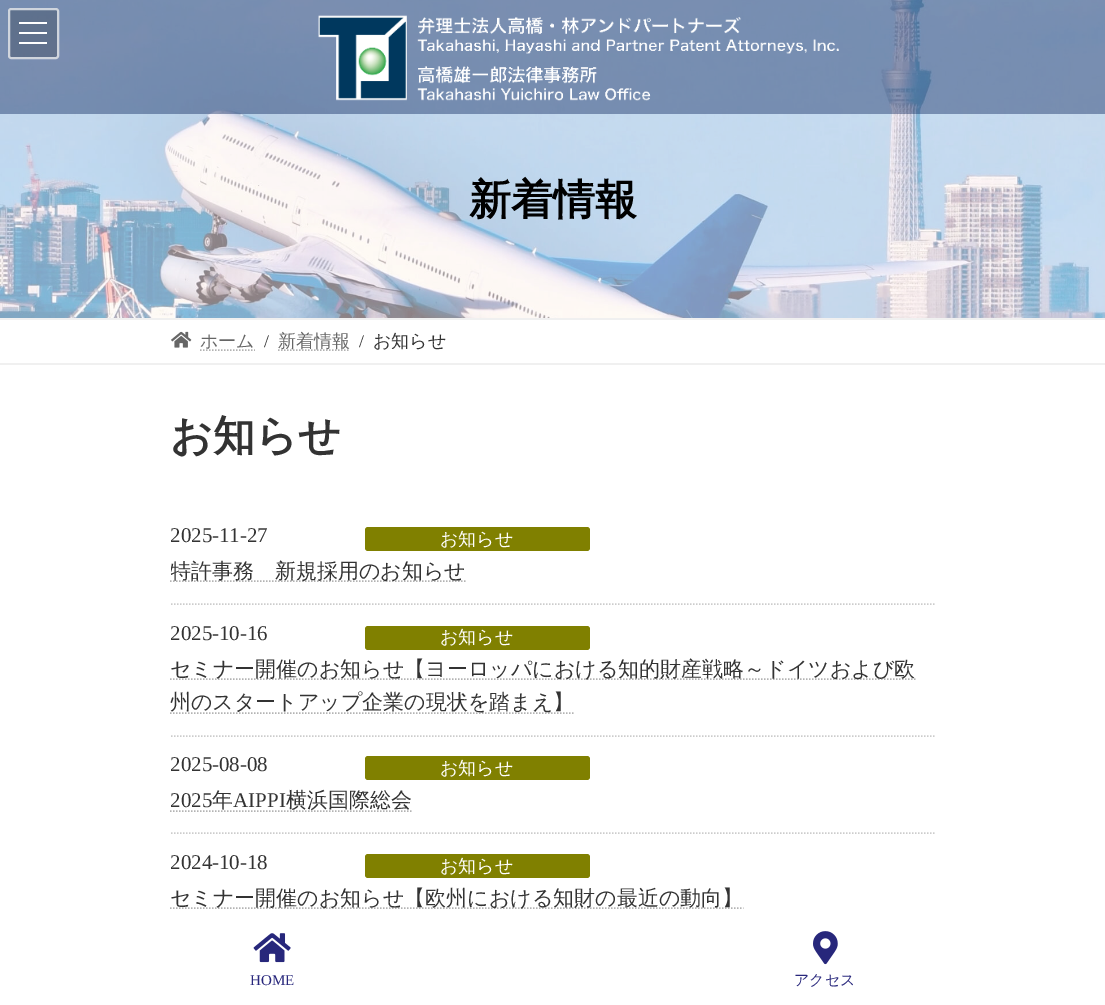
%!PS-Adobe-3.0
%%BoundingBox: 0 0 1105 1005
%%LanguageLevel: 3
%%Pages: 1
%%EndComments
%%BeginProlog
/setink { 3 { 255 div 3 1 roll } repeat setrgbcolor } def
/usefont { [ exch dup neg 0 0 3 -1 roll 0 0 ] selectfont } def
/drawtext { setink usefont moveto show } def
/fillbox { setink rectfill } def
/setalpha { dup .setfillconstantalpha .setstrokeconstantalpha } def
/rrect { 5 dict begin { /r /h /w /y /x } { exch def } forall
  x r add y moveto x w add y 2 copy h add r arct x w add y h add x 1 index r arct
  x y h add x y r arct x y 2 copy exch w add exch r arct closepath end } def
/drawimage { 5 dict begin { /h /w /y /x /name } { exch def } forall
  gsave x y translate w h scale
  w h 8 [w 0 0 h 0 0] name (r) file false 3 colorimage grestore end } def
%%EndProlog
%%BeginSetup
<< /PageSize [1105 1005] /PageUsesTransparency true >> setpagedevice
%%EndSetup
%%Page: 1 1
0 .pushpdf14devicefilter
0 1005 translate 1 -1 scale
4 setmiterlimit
0 0 1105 1005 255 255 255 fillbox
(assets/img2.rgb) 0 0 1105 318 drawimage
0.4 setalpha
0 0 1105 114 0 26 83 fillbox
1 setalpha
(assets/img1.rgb) 318 15 521 86 drawimage
0.2 setalpha
0 0 0 setink
8 8 51 51 3 rrect fill
1 setalpha
19 22 28 2 255 255 255 fillbox
19 32 28 2 255 255 255 fillbox
19 42 28 2 255 255 255 fillbox
0.7 setalpha
2 setlinewidth
9 9 49 49 2 rrect stroke
1 setalpha
(新着情報) 469 214 /WenQuanYiZenHei-Bold 42 0 0 0 drawtext
0 318 1105 2 240 240 240 fillbox
0 363 1105 2 240 240 240 fillbox
(assets/img3.rgb) 171 331 21 17 drawimage
(ホーム) 200 347 /WenQuanYiZenHei-Medium 18 102 102 102 drawtext
179 179 179 setink
1.5 setlinewidth
[1.5 1.5] 0 setdash
200 350 moveto 255 350 lineto stroke
(/) 264 347 /LiberationSerif-Regular 18 51 51 51 drawtext
179 179 179 setink
278 350 moveto 350 350 lineto stroke
(新着情報) 278 347 /WenQuanYiZenHei-Medium 18 102 102 102 drawtext
(/) 359 347 /LiberationSerif-Regular 18 51 51 51 drawtext
(お知らせ) 373 347 /WenQuanYiZenHei-Medium 18 51 51 51 drawtext
(お知らせ) 170 450 /WenQuanYiZenHei-Bold 42 51 51 51 drawtext
204 204 204 setink
171 604 moveto 936 604 lineto stroke
(2025-11-27) 170 542 /LiberationSerif-Regular 21 51 51 51 drawtext
128 128 0 setink
365 527 225 24 3 rrect fill
(お知らせ) 440 545 /WenQuanYiZenHei-Medium 18 255 255 255 drawtext
179 179 179 setink
170 581 moveto 466 581 lineto stroke
gsave
171 551 765 39 rectclip
(特許事務　新規採用のお知らせ) 170 578 /WenQuanYiZenHei-Medium 21 51 51 51 drawtext
grestore
204 204 204 setink
171 736 moveto 936 736 lineto stroke
(2025-10-16) 170 640 /LiberationSerif-Regular 21 51 51 51 drawtext
128 128 0 setink
365 626 225 24 3 rrect fill
(お知らせ) 440 643 /WenQuanYiZenHei-Medium 18 255 255 255 drawtext
179 179 179 setink
170 679 moveto 915.5 679 lineto stroke
(セミナー開催のお知らせ【ヨーロッパにおける知的財産戦略～ドイツおよび欧) 170 676 /WenQuanYiZenHei-Medium 21 51 51 51 drawtext
179 179 179 setink
170 713 moveto 574.5 713 lineto stroke
(州のスタートアップ企業の現状を踏まえ】) 170 709 /WenQuanYiZenHei-Medium 21 51 51 51 drawtext
204 204 204 setink
171 833 moveto 936 833 lineto stroke
(2025-08-08) 170 771 /LiberationSerif-Regular 21 51 51 51 drawtext
128 128 0 setink
365 756 225 24 3 rrect fill
(お知らせ) 440 774 /WenQuanYiZenHei-Medium 18 255 255 255 drawtext
(2025) 170 807 /LiberationSerif-Regular 21 51 51 51 drawtext
179 179 179 setink
170 811 moveto 412 811 lineto stroke
(年) 212 807 /WenQuanYiZenHei-Medium 21 51 51 51 drawtext
(AIPPI) 233 807 /LiberationSerif-Regular 21 51 51 51 drawtext
(横浜国際総会) 286 807 /WenQuanYiZenHei-Medium 21 51 51 51 drawtext
(2024-10-18) 170 869 /LiberationSerif-Regular 21 51 51 51 drawtext
128 128 0 setink
365 854 225 24 3 rrect fill
(お知らせ) 440 872 /WenQuanYiZenHei-Medium 18 255 255 255 drawtext
179 179 179 setink
170 908 moveto 743.5 908 lineto stroke
(セミナー開催のお知らせ【欧州における知財の最近の動向】) 170 905 /WenQuanYiZenHei-Medium 21 51 51 51 drawtext
(assets/img4.rgb) 253 933 38 30 drawimage
(HOME) 250 985 /LiberationSerif-Regular 15 40 39 124 drawtext
(assets/img5.rgb) 813 931 25 34 drawimage
(アクセス) 794 985 /WenQuanYiZenHei-Medium 15 40 39 124 drawtext
.poppdf14devicefilter showpage
%%EOF
